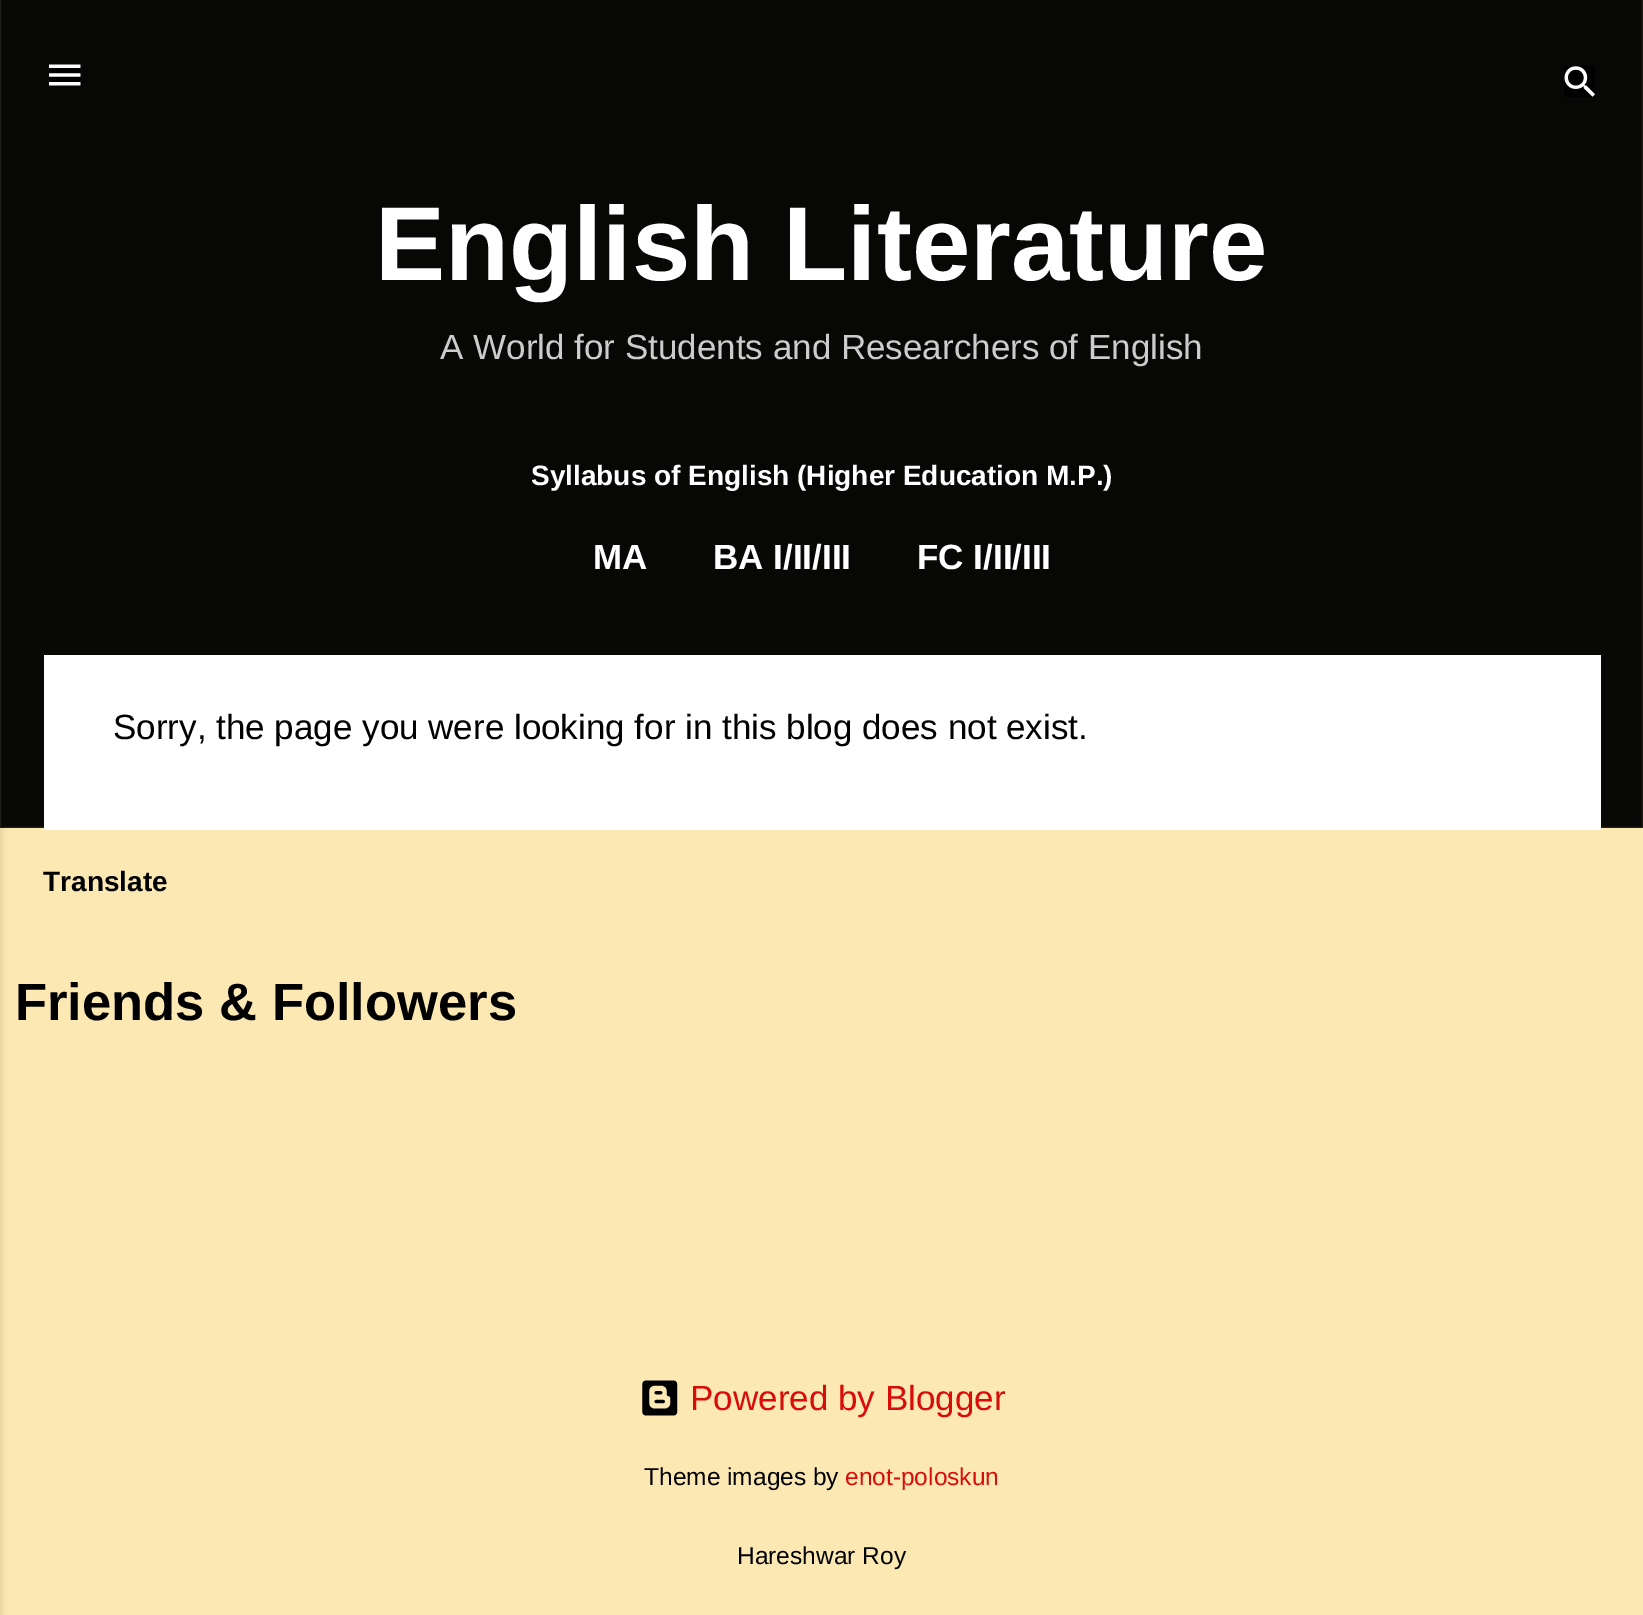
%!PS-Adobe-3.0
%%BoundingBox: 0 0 1643 1615
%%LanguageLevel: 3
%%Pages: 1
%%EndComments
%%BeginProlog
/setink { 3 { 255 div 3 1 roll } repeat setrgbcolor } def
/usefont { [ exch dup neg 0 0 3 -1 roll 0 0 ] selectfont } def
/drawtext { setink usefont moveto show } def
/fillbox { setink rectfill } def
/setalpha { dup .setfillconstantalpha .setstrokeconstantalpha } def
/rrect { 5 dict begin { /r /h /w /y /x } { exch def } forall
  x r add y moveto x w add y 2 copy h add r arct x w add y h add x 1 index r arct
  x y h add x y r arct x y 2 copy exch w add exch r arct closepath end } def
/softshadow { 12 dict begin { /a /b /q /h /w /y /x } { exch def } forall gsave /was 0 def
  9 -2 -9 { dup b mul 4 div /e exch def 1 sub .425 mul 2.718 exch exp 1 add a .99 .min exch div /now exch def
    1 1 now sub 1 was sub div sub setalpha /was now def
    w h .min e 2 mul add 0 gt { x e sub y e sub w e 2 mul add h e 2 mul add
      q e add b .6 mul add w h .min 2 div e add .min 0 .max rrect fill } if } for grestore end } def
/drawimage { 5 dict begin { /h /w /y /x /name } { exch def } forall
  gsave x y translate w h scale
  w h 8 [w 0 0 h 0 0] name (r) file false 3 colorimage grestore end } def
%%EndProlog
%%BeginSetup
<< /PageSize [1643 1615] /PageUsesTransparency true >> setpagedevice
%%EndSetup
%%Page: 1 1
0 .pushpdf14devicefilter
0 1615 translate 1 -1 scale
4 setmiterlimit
0 0 1643 1615 252 232 178 fillbox
0 0 0 setink
-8 2 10 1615 0 2.5 0.1 softshadow
gsave
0 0 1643 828 rectclip
1 1 1 setink
-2 -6 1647 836 0 2 1 softshadow
grestore
(assets/img1.rgb) 49 64 32 22 drawimage
(assets/img2.rgb) 1564 66 31 31 drawimage
(English Literature) 375 280 /LiberationSans-Bold 105 255 255 255 drawtext
(A World for Students and Researchers of English) 440 359 /LiberationSans-Regular 35 204 204 204 drawtext
(Syllabus of English \(Higher Education M.P.\)) 531 485 /LiberationSans-Bold 28 255 255 255 drawtext
(MA) 593 569 /LiberationSans-Bold 35 255 255 255 drawtext
(BA I/II/III) 713 569 /LiberationSans-Bold 35 255 255 255 drawtext
(FC I/II/III) 917 569 /LiberationSans-Bold 35 255 255 255 drawtext
44 655 1557 175 255 255 255 fillbox
(Sorry, the page you were looking for in this blog does not exist.) 113 739 /LiberationSans-Regular 35 0 0 0 drawtext
(Translate) 43 891 /LiberationSans-Bold 28 0 0 0 drawtext
(Friends & Followers) 15 1020 /LiberationSans-Bold 52.5 0 0 0 drawtext
(assets/img3.rgb) 642 1380 36 36 drawimage
(Powered by Blogger) 690 1410 /LiberationSans-Regular 35 217 12 12 drawtext
(Theme images by) 644 1485 /LiberationSans-Regular 24.5 0 0 0 drawtext
(enot-poloskun) 845 1485 /LiberationSans-Regular 24.5 217 12 12 drawtext
(Hareshwar Roy) 737 1564 /LiberationSans-Regular 24.5 0 0 0 drawtext
.poppdf14devicefilter showpage
%%EOF
